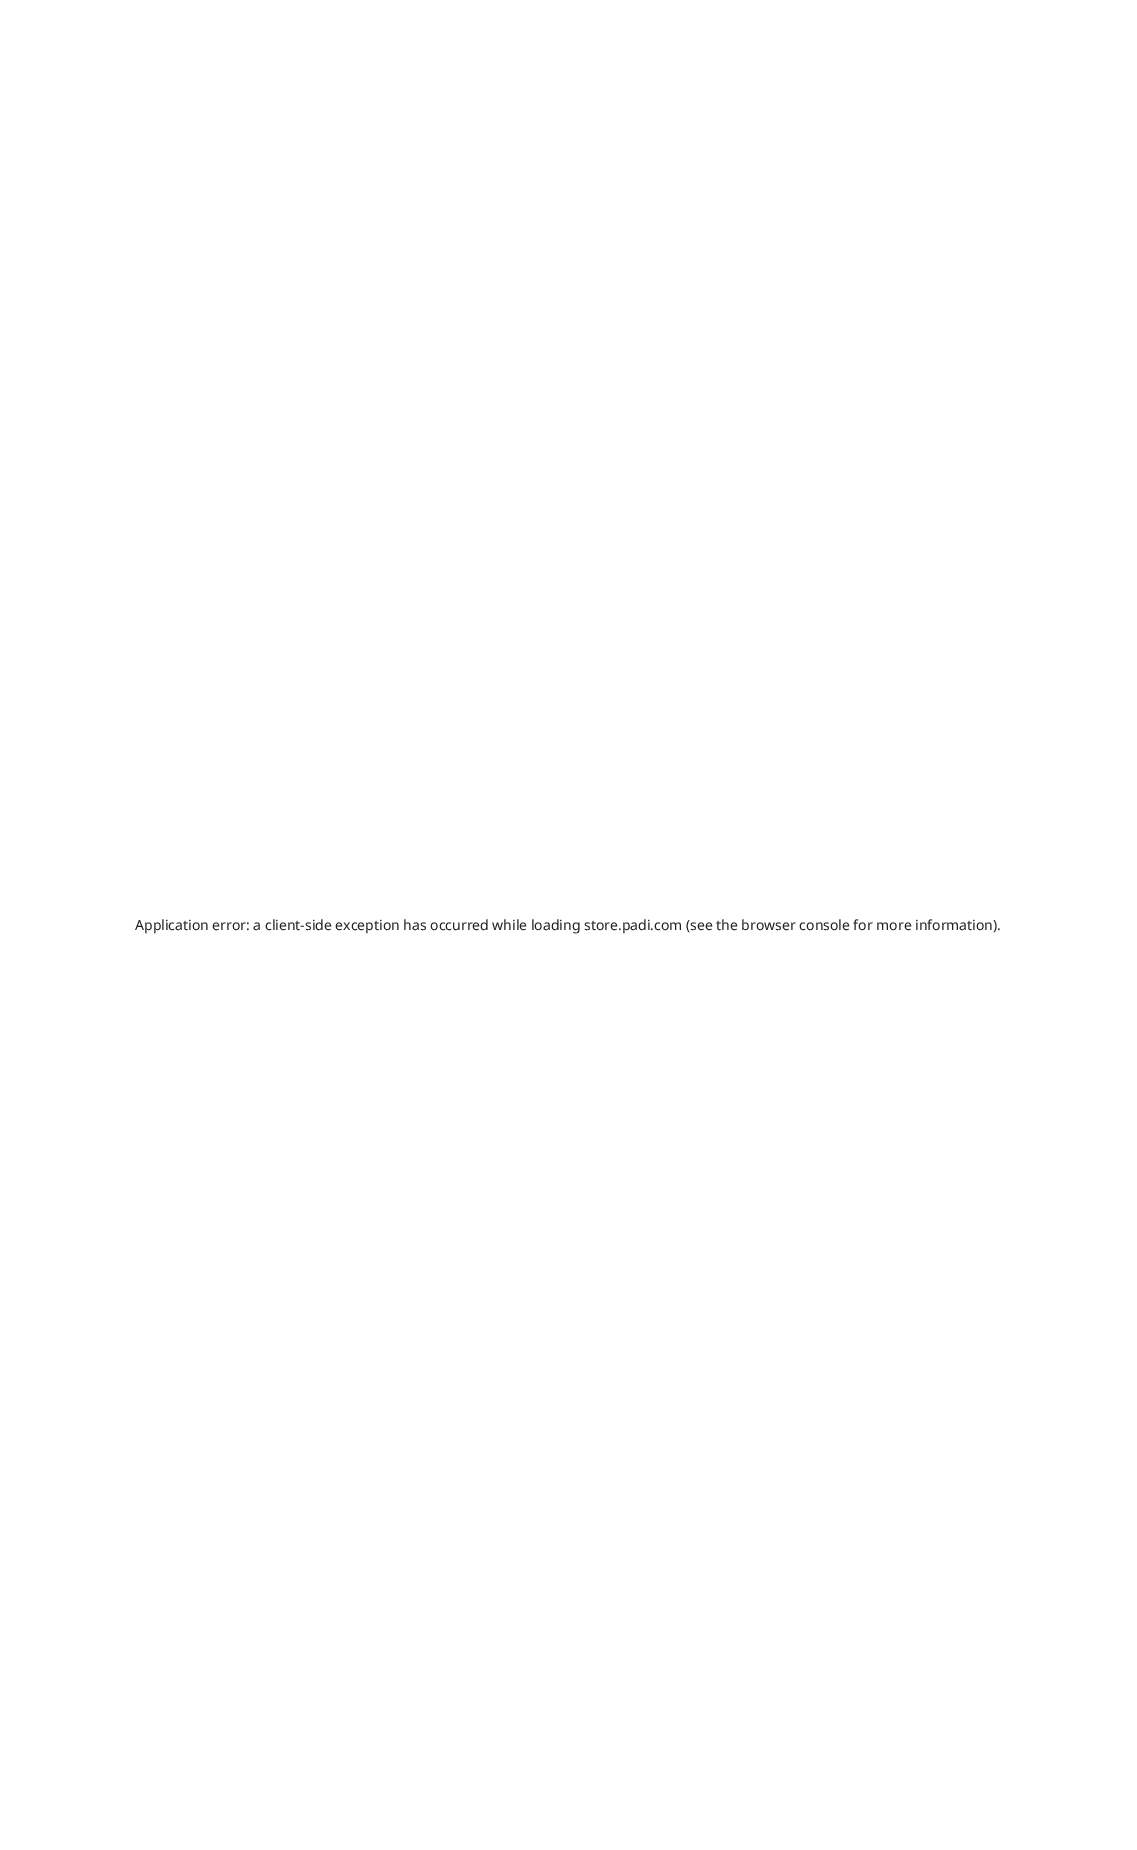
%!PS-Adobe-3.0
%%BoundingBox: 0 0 1137 1850
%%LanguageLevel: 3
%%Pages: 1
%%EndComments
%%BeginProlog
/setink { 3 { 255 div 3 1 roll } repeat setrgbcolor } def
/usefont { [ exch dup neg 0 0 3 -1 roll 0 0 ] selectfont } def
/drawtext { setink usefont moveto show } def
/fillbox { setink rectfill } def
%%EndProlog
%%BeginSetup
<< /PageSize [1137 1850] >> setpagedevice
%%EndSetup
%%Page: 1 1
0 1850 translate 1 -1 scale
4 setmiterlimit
0 0 1137 1850 255 255 255 fillbox
(Application error: a client-side exception has occurred while loading store.padi.com \(see the browser console for more information\).) 135 930 /NotoSans-Regular 14 33 33 33 drawtext
showpage
%%EOF
